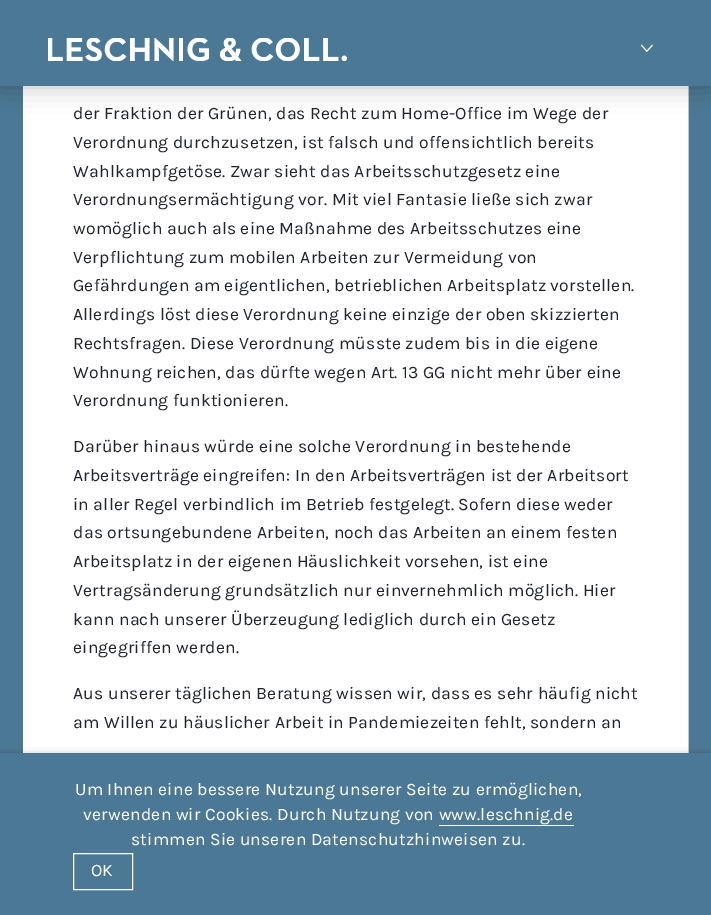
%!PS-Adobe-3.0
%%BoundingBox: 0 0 711 915
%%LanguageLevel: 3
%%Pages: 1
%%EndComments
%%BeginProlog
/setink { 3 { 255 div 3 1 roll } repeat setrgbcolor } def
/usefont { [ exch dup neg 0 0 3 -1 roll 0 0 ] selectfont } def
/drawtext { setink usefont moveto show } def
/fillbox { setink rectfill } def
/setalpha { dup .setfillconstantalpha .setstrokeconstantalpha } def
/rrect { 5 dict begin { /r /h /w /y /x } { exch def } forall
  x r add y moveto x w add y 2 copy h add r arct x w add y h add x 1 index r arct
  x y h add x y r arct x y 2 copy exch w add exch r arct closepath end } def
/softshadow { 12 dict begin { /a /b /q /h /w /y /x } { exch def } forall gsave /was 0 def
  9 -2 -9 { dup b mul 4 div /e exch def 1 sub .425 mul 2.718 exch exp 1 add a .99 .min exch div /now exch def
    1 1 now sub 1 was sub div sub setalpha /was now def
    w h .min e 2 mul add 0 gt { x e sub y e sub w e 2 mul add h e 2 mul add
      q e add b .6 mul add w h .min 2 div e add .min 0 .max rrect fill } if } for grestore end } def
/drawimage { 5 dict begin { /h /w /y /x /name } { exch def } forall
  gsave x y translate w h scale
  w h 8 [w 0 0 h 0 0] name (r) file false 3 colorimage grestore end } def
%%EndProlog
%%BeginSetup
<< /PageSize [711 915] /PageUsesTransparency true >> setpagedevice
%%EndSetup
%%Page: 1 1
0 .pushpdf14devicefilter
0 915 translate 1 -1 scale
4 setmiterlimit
0 0 711 915 75 120 148 fillbox
23 86 665 667 255 255 255 fillbox
688 86 1 667 196 196 196 fillbox
0 0 0 setink
0 0 711 86 0 12.5 0.25 softshadow
0 0 711 86 75 120 148 fillbox
(assets/img1.rgb) 48 38 299 23 drawimage
(assets/img2.rgb) 640 44 13 9 drawimage
/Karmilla-Regular 17.5 usefont
33 37 41 setink
73 119 moveto 0.18 0 (der Fraktion der Grünen, das Recht zum Home-Office im Wege der) ashow
73 148 moveto 0.18 0 (Verordnung durchzusetzen, ist falsch und offensichtlich bereits) ashow
73 177 moveto 0.18 0 (Wahlkampfgetöse. Zwar sieht das Arbeitsschutzgesetz eine) ashow
73 205 moveto 0.18 0 (Verordnungsermächtigung vor. Mit viel Fantasie ließe sich zwar) ashow
73 234 moveto 0.18 0 (womöglich auch als eine Maßnahme des Arbeitsschutzes eine) ashow
73 263 moveto 0.18 0 (Verpflichtung zum mobilen Arbeiten zur Vermeidung von) ashow
73 291 moveto 0.18 0 (Gefährdungen am eigentlichen, betrieblichen Arbeitsplatz vorstellen.) ashow
73 320 moveto 0.18 0 (Allerdings löst diese Verordnung keine einzige der oben skizzierten) ashow
73 349 moveto 0.18 0 (Rechtsfragen. Diese Verordnung müsste zudem bis in die eigene) ashow
73 378 moveto 0.18 0 (Wohnung reichen, das dürfte wegen Art. 13 GG nicht mehr über eine) ashow
73 406 moveto 0.18 0 (Verordnung funktionieren.) ashow
73 452 moveto 0.18 0 (Darüber hinaus würde eine solche Verordnung in bestehende) ashow
73 481 moveto 0.18 0 (Arbeitsverträge eingreifen: In den Arbeitsverträgen ist der Arbeitsort) ashow
73 510 moveto 0.18 0 (in aller Regel verbindlich im Betrieb festgelegt. Sofern diese weder) ashow
73 538 moveto 0.18 0 (das ortsungebundene Arbeiten, noch das Arbeiten an einem festen) ashow
73 567 moveto 0.18 0 (Arbeitsplatz in der eigenen Häuslichkeit vorsehen, ist eine) ashow
73 596 moveto 0.18 0 (Vertragsänderung grundsätzlich nur einvernehmlich möglich. Hier) ashow
73 625 moveto 0.18 0 (kann nach unserer Überzeugung lediglich durch ein Gesetz) ashow
73 653 moveto 0.18 0 (eingegriffen werden.) ashow
73 699 moveto 0.18 0 (Aus unserer täglichen Beratung wissen wir, dass es sehr häufig nicht) ashow
73 728 moveto 0.18 0 (am Willen zu häuslicher Arbeit in Pandemiezeiten fehlt, sondern an) ashow
0 0 0 setink
0 753 711 162 0 3 0.2 softshadow
0 753 711 162 75 120 148 fillbox
255 255 255 setink
75 795 moveto 0.18 0 (Um Ihnen eine bessere Nutzung unserer Seite zu ermöglichen,) ashow
83 820 moveto 0.18 0 (verwenden wir Cookies. Durch Nutzung von www.leschnig.de) ashow
439 825 135 1 255 255 255 fillbox
131 845 moveto 0.18 0 (stimmen Sie unseren Datenschutzhinweisen zu.) ashow
73.5 853.5 59 36 rectstroke
(OK) 91 876 /Karmilla-Regular 17.5 255 255 255 drawtext
.poppdf14devicefilter showpage
%%EOF
